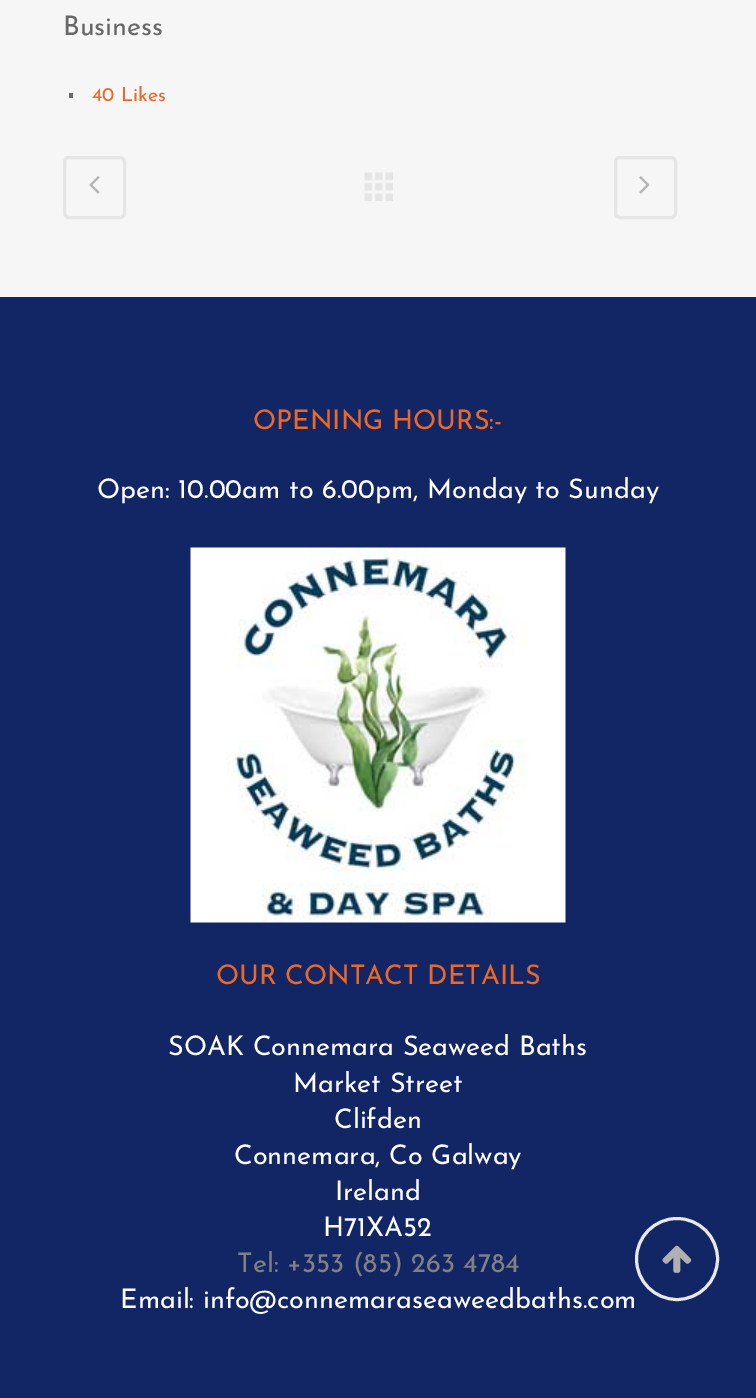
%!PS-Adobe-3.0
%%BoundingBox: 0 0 756 1398
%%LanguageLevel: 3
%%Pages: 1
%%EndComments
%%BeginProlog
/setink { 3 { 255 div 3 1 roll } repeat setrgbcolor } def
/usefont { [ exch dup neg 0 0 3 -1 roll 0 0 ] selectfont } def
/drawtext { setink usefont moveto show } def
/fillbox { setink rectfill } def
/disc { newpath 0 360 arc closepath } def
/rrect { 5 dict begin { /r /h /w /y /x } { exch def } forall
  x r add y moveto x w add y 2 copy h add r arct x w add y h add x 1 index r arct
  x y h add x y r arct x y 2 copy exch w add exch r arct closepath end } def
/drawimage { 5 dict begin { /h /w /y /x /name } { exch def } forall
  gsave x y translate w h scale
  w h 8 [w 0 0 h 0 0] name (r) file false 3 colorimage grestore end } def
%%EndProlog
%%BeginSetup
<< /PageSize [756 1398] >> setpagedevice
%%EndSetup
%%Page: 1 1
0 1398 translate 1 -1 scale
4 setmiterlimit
0 0 756 1398 246 246 246 fillbox
(Business) 63 35 /JosefinSans-Regular 27 104 104 104 drawtext
69 93 4 5 104 104 104 fillbox
(40 Likes) 92 101 /JosefinSans-Regular 19.5 236 104 39 drawtext
229 229 229 setink
3 setlinewidth
64.5 157.5 60 60 4.5 rrect stroke
(assets/img1.rgb) 89 176 11 18 drawimage
(assets/img2.rgb) 364 172 29 29 drawimage
615.5 157.5 60 60 4.5 rrect stroke
(assets/img3.rgb) 639 176 11 18 drawimage
0 297 756 1101 18 37 100 fillbox
(OPENING HOURS:-) 253 429 /JosefinSans-Regular 27 236 104 39 drawtext
(Open: 10.00am to 6.00pm, Monday to Sunday) 97 498 /JosefinSans-Regular 27 255 255 255 drawtext
(assets/img4.rgb) 190 547 376 376 drawimage
(OUR CONTACT DETAILS) 216 984 /JosefinSans-Regular 27 236 104 39 drawtext
(SOAK Connemara Seaweed Baths) 168 1055 /JosefinSans-Regular 27 255 255 255 drawtext
(Market Street) 293 1092 /JosefinSans-Regular 27 255 255 255 drawtext
(Clifden) 334 1128 /JosefinSans-Regular 27 255 255 255 drawtext
(Connemara, Co Galway) 234 1164 /JosefinSans-Regular 27 255 255 255 drawtext
(Ireland) 335 1200 /JosefinSans-Regular 27 255 255 255 drawtext
(H71XA52) 323 1236 /JosefinSans-Regular 27 255 255 255 drawtext
(Tel: +353 \(85\) 263 4784) 237 1272 /JosefinSans-Regular 27 129 129 129 drawtext
(Email: info@connemaraseaweedbaths.com) 120 1308 /JosefinSans-Regular 27 255 255 255 drawtext
232 232 232 setink
677 1259 40.5 disc stroke
(assets/img5.rgb) 662 1245 30 28 drawimage
showpage
%%EOF
